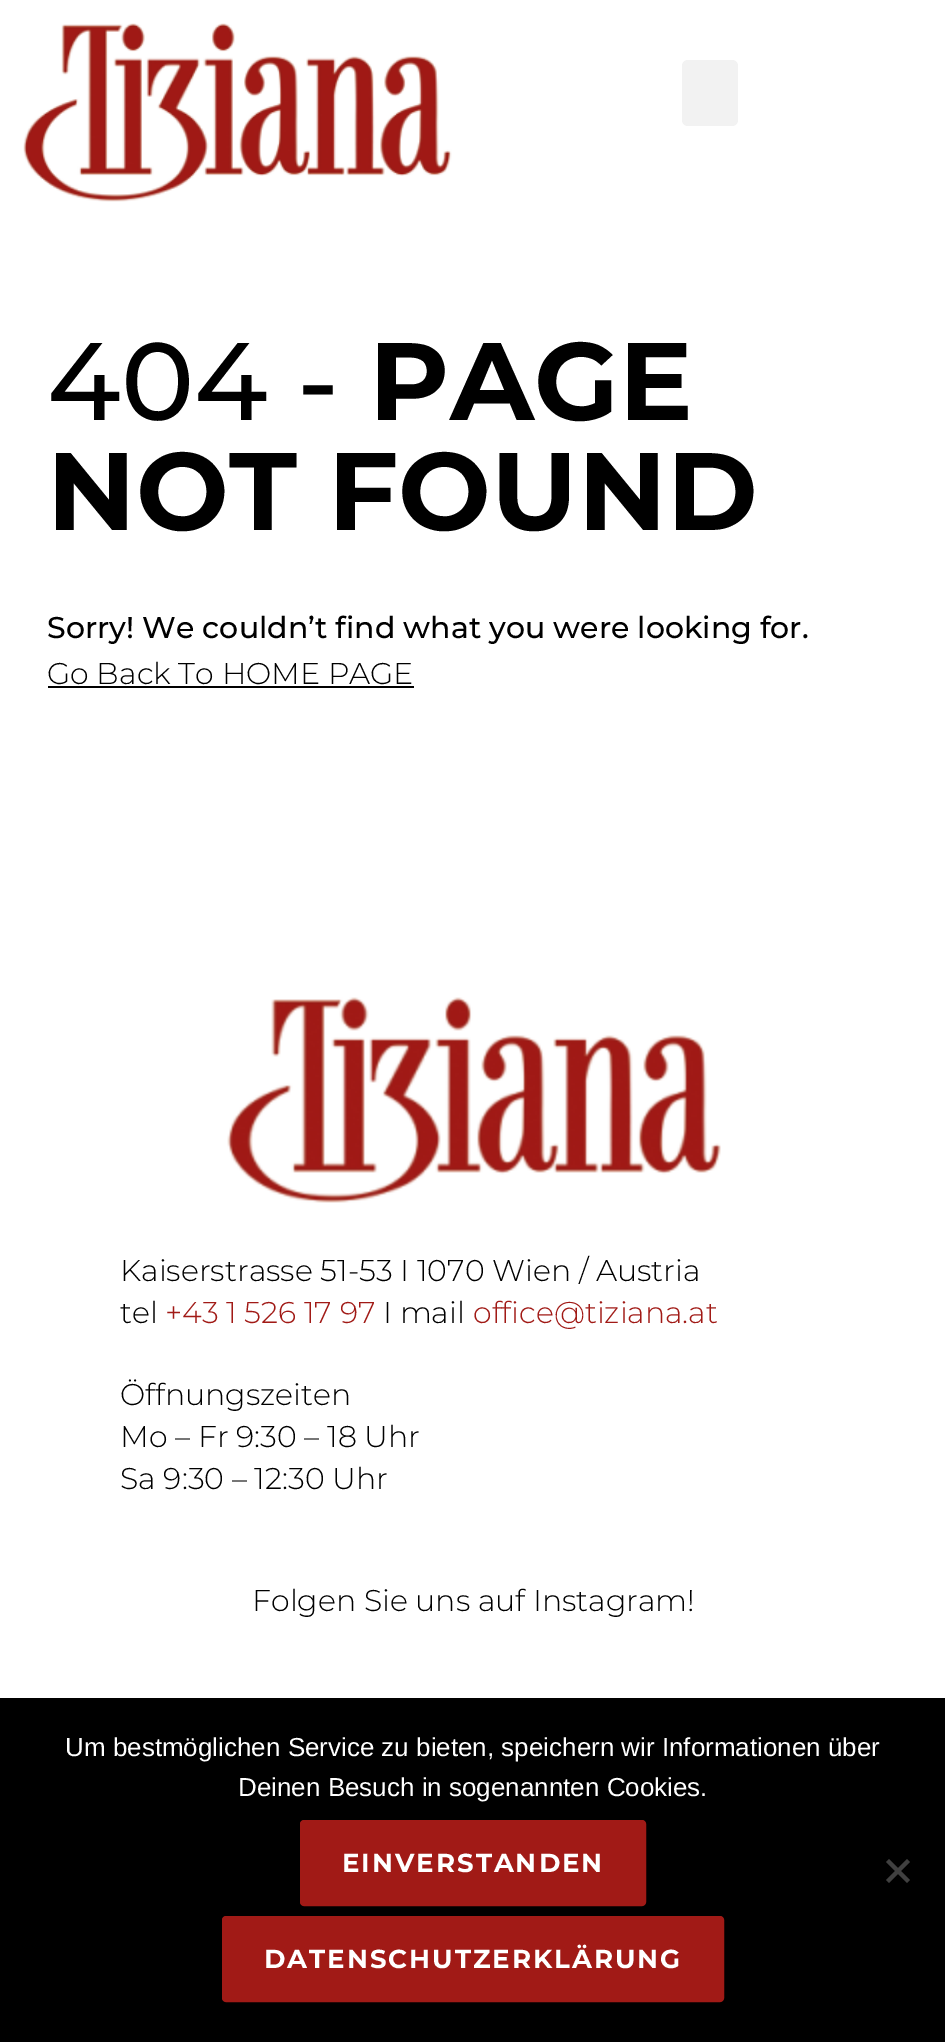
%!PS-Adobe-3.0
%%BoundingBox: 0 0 945 2042
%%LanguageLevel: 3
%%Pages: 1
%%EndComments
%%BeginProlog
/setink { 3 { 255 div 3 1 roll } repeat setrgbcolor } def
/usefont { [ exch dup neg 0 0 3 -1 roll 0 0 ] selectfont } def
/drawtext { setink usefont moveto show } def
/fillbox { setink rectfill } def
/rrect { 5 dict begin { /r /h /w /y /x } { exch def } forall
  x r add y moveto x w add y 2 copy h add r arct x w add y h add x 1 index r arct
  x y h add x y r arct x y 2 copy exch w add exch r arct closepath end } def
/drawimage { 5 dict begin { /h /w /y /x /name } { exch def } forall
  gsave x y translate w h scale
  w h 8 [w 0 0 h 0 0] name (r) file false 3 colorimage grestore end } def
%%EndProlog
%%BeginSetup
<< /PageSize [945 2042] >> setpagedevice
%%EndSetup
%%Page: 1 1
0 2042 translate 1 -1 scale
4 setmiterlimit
0 0 945 2042 255 255 255 fillbox
(assets/img1.rgb) 23 23 429 179 drawimage
242 242 242 setink
682 60 56 66 6 rrect fill
(404 -) 47 420 /Montserrat-Medium 110 0 0 0 drawtext
(PAGE) 369 420 /Montserrat-Bold 110 0 0 0 drawtext
(NOT FOUND) 47 530 /Montserrat-Bold 110 0 0 0 drawtext
(Sorry! We couldn’t find what you were looking for.) 47 638 /Montserrat-Medium 30 0 0 0 drawtext
(Go Back To HOME PAGE) 47 684 /Montserrat-Light 30 0 0 0 drawtext
48 686 366 2 0 0 0 fillbox
(assets/img2.rgb) 227 997 494 206 drawimage
(Kaiserstrasse 51-53 I 1070 Wien / Austria) 120 1281 /Montserrat-Light 30 0 0 0 drawtext
(tel) 120 1323 /Montserrat-Light 30 0 0 0 drawtext
(+43 1 526 17 97) 165 1323 /Montserrat-Light 30 161 26 22 drawtext
(I mail) 383 1323 /Montserrat-Light 30 0 0 0 drawtext
(office@tiziana.at) 473 1323 /Montserrat-Light 30 161 26 22 drawtext
(Öffnungszeiten) 120 1405 /Montserrat-Light 30 0 0 0 drawtext
(Mo – Fr 9:30 – 18 Uhr) 120 1447 /Montserrat-Light 30 0 0 0 drawtext
(Sa 9:30 – 12:30 Uhr) 120 1489 /Montserrat-Light 30 0 0 0 drawtext
(Folgen Sie uns auf Instagram!) 252 1611 /Montserrat-Light 30 0 0 0 drawtext
0 1698 945 344 0 0 0 fillbox
(Um bestmöglichen Service zu bieten, speichern wir Informationen über) 65 1756 /LiberationSans-Regular 26 255 255 255 drawtext
(Deinen Besuch in sogenannten Cookies.) 238 1796 /LiberationSans-Regular 26 255 255 255 drawtext
161 26 22 setink
301 1821 344 84 3 rrect gsave fill grestore
2 setlinewidth
stroke
/Montserrat-Bold 26 usefont
255 255 255 setink
342 1872 moveto 2 0 (EINVERSTANDEN) ashow
161 26 22 setink
223 1917 500 84 3 rrect gsave fill grestore
stroke
255 255 255 setink
264 1968 moveto 2 0 (DATENSCHUTZERKLÄRUNG) ashow
64 64 64 setink
907 1859 moveto 910 1862 lineto 889 1883 lineto 886 1880 lineto closepath fill
886 1862 moveto 889 1859 lineto 910 1880 lineto 907 1883 lineto closepath fill
showpage
%%EOF
